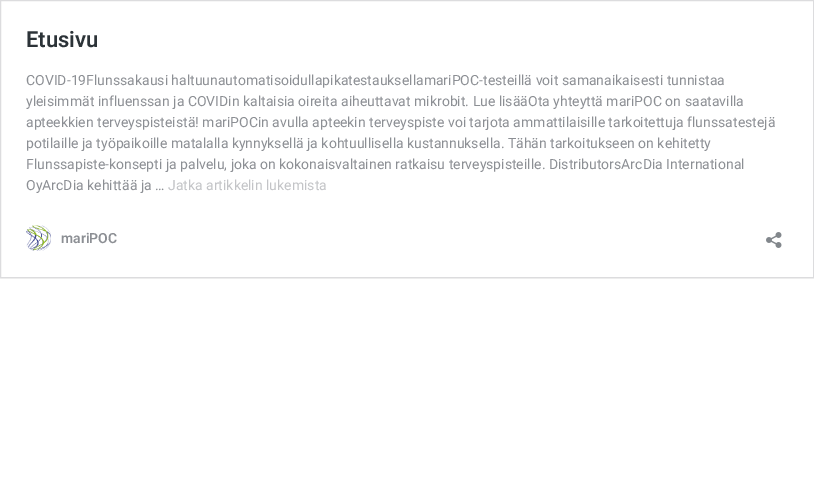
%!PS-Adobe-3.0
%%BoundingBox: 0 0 814 479
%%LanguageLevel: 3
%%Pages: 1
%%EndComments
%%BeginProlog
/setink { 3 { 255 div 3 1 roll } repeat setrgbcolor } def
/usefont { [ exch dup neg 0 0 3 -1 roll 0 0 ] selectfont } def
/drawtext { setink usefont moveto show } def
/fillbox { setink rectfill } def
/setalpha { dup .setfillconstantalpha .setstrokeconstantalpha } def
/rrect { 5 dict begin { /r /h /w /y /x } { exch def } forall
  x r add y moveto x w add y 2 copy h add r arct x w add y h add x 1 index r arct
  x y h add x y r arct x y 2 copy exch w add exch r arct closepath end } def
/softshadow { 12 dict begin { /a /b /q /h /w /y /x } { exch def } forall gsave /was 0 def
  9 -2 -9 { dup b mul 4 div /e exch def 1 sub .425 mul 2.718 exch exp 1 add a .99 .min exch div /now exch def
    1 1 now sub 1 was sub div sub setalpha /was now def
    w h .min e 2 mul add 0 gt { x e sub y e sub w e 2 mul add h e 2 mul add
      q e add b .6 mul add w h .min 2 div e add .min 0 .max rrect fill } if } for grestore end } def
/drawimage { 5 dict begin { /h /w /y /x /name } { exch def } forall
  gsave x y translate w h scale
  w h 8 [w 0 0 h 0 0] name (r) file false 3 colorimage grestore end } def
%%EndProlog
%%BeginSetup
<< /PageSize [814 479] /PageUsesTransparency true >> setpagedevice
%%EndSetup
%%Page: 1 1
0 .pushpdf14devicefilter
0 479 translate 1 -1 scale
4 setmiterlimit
0 0 814 479 255 255 255 fillbox
gsave
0 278 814 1 rectclip
0 0 0 setink
0 1 814 278 0 0.5 0.05 softshadow
grestore
220 220 222 setink
0.5 0.5 813 277 rectstroke
(Etusivu) 26 47 /Roboto-SemiBold 22 44 51 56 drawtext
(COVID-19Flunssakausi haltuunautomatisoidullapikatestauksellamariPOC-testeillä voit samanaikaisesti tunnistaa) 26 85 /Roboto-Regular 14 140 143 148 drawtext
(yleisimmät influenssan ja COVIDin kaltaisia oireita aiheuttavat mikrobit. Lue lisääOta yhteyttä mariPOC on saatavilla) 26 106 /Roboto-Regular 14 140 143 148 drawtext
(apteekkien terveyspisteistä! mariPOCin avulla apteekin terveyspiste voi tarjota ammattilaisille tarkoitettuja flunssatestejä) 26 127 /Roboto-Regular 14 140 143 148 drawtext
(potilaille ja työpaikoille matalalla kynnyksellä ja kohtuullisella kustannuksella. Tähän tarkoitukseen on kehitetty) 26 148 /Roboto-Regular 14 140 143 148 drawtext
(Flunssapiste-konsepti ja palvelu, joka on kokonaisvaltainen ratkaisu terveyspisteille. DistributorsArcDia International) 26 169 /Roboto-Regular 14 140 143 148 drawtext
(OyArcDia kehittää ja …) 26 190 /Roboto-Regular 14 140 143 148 drawtext
(Jatka artikkelin lukemista) 168 190 /Roboto-Regular 14 195 196 199 drawtext
(assets/img1.rgb) 26 225 25 26 drawimage
(mariPOC) 61 243 /Roboto-SemiBold 14 140 143 148 drawtext
(assets/img2.rgb) 766 232 16 16 drawimage
.poppdf14devicefilter showpage
%%EOF
